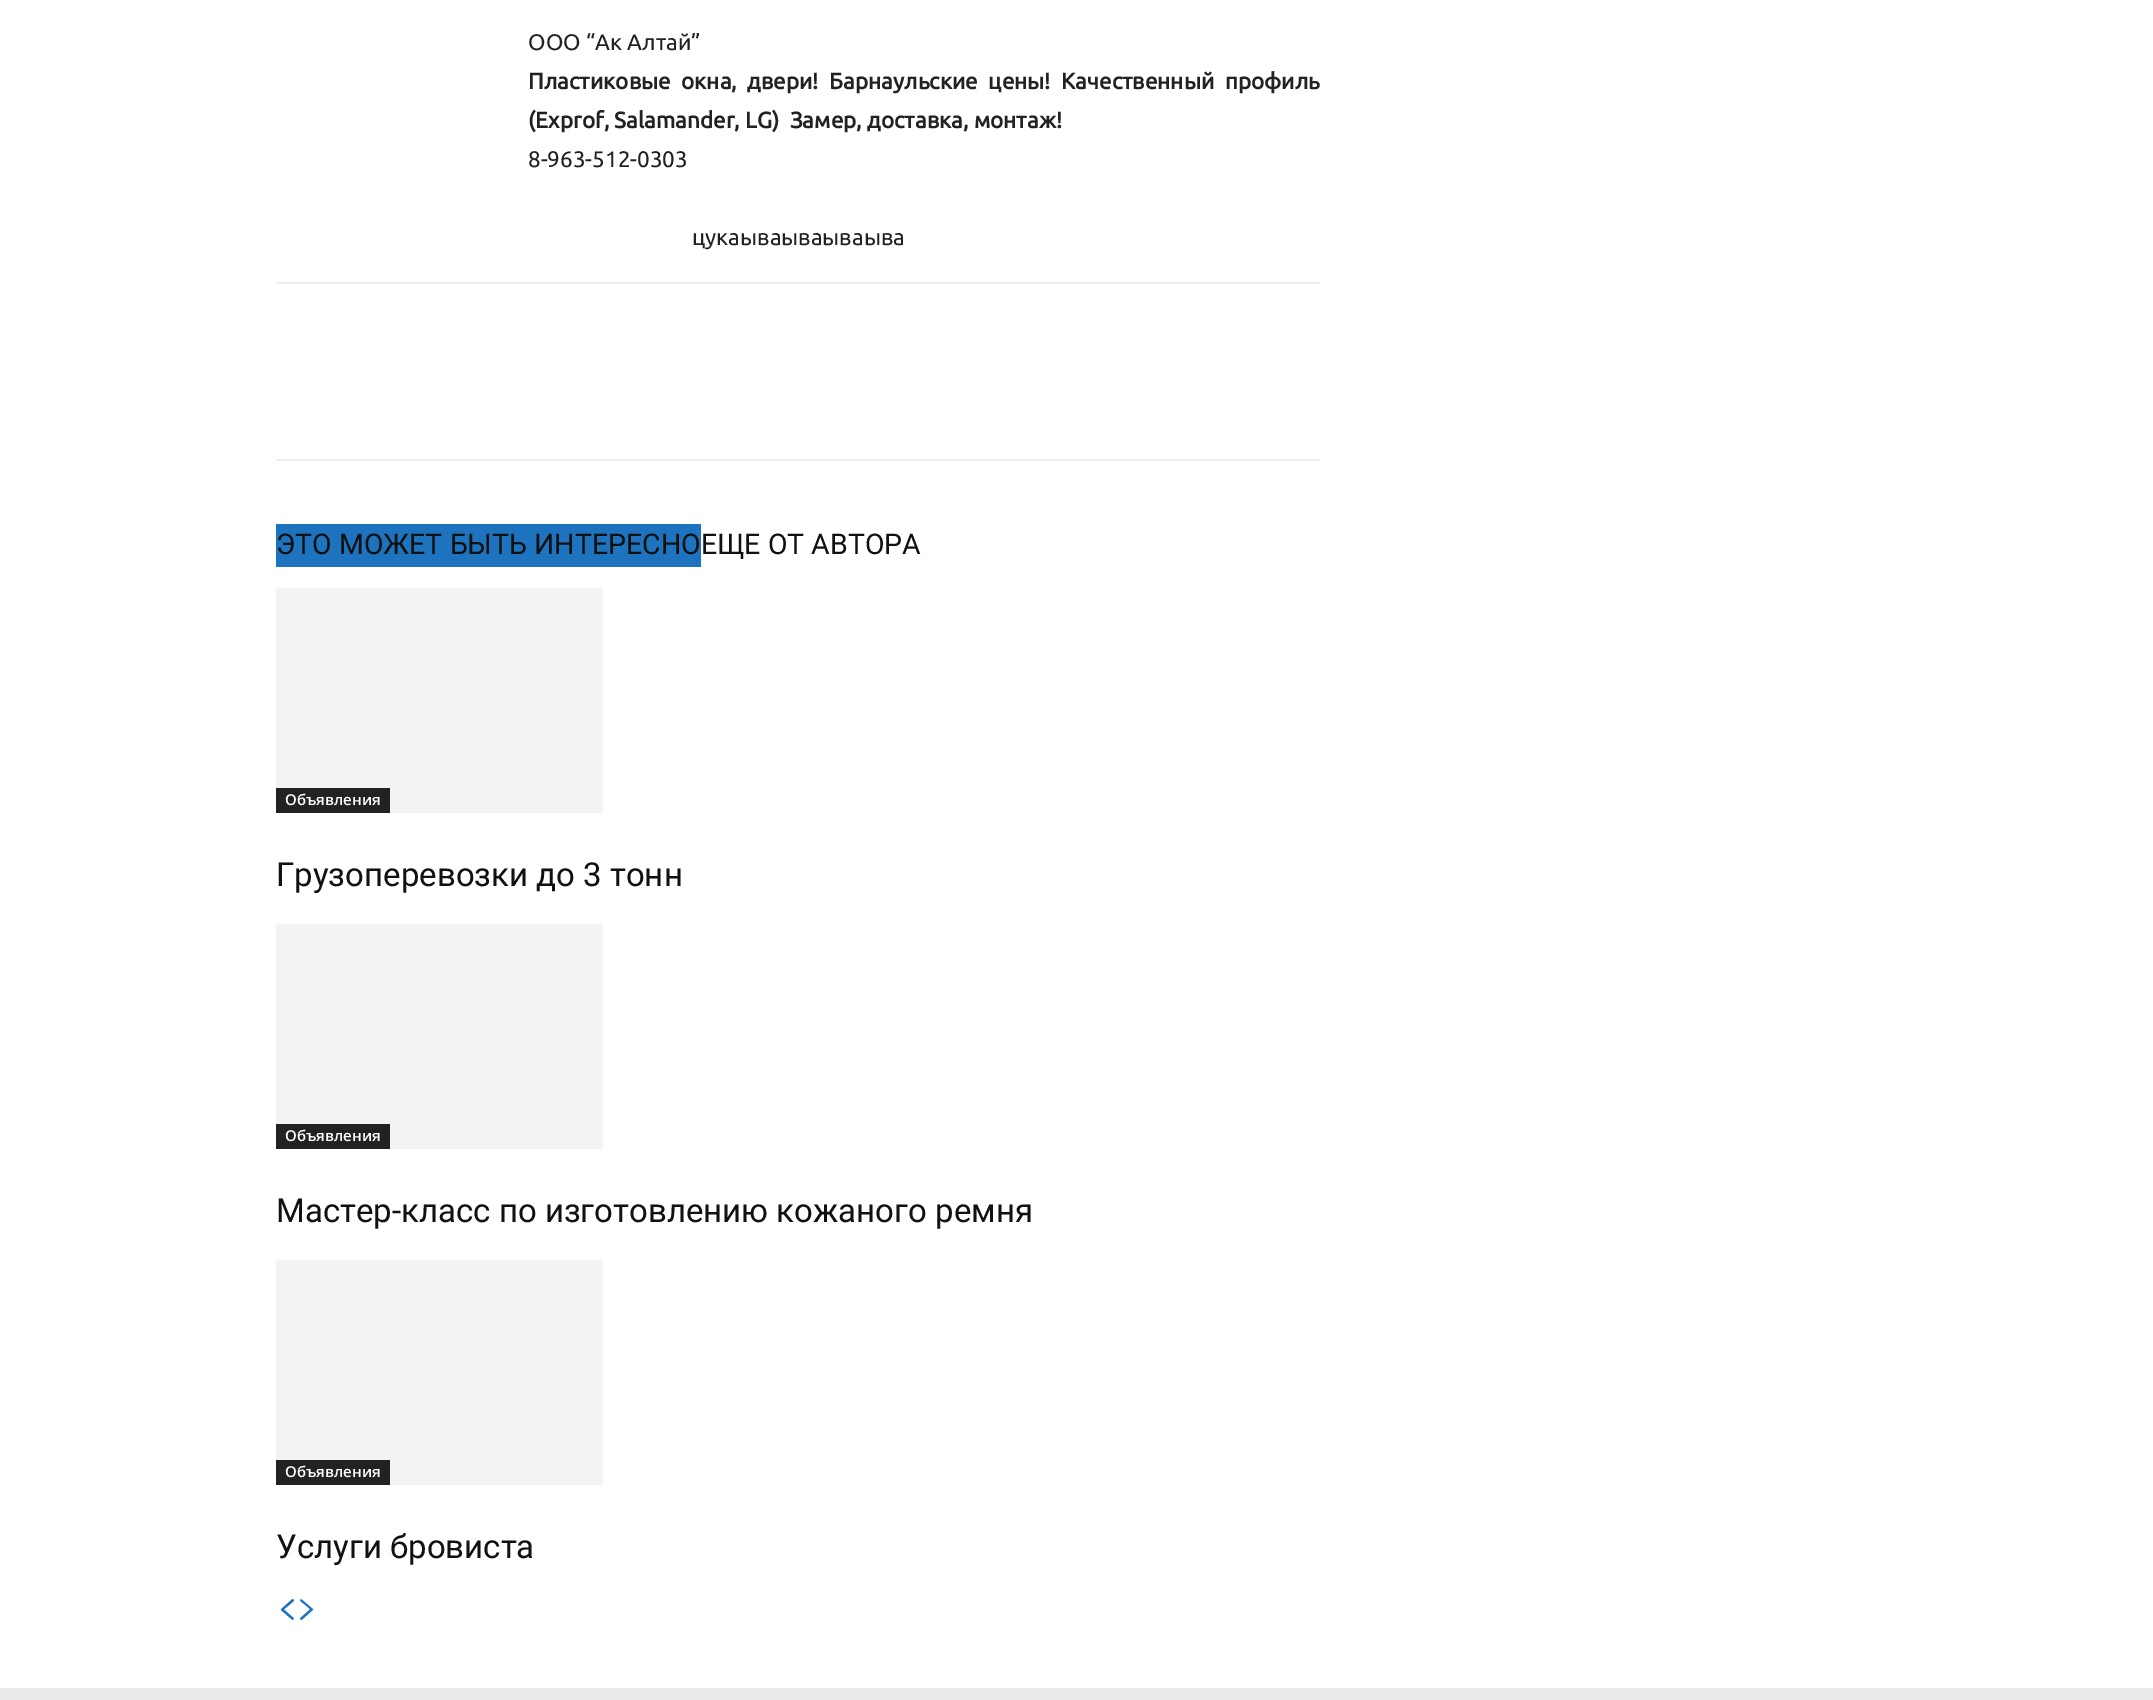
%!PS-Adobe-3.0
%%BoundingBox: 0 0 2153 1700
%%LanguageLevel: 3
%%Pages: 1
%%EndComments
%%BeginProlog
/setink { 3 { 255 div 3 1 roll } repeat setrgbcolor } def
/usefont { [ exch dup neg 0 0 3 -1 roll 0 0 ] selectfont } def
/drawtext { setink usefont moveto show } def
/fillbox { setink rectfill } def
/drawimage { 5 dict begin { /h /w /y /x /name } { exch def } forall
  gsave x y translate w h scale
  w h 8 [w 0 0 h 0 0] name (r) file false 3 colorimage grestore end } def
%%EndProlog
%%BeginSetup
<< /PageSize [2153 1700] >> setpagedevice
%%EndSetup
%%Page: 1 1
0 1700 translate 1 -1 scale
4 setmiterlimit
0 0 2153 1700 255 255 255 fillbox
(ООО “Ак Алтай”) 528 50 /Ubuntu-Regular 22.5 34 34 34 drawtext
/Ubuntu-Bold 22.5 usefont
528 89 moveto 5.25 0 32 (Пластиковые окна, двери! Барнаульские цены! Качественный профиль) widthshow
(\(Exprof, Salamander, LG\)  Замер, доставка, монтаж!) 528 128 /Ubuntu-Bold 22.5 34 34 34 drawtext
(8-963-512-0303) 528 167 /Ubuntu-Regular 22.5 34 34 34 drawtext
(цукаываываываыва) 692 245 /Ubuntu-Regular 22.5 34 34 34 drawtext
276 282 1044 2 237 237 237 fillbox
276 459 1044 2 237 237 237 fillbox
276 524 425 43 30 115 190 fillbox
(ЭТО МОЖЕТ БЫТЬ ИНТЕРЕСНОЕЩЕ ОТ АВТОРА) 276 554 /Roboto-Regular 28.5 17 17 17 drawtext
276 588 327 225 243 243 243 fillbox
276 788 114 25 34 34 34 fillbox
(Объявления) 285 805 /OpenSans-SemiBold 15 255 255 255 drawtext
(Грузоперевозки до 3 тонн) 276 886 /Roboto-Regular 33 17 17 17 drawtext
276 924 327 225 243 243 243 fillbox
276 1124 114 25 34 34 34 fillbox
(Объявления) 285 1141 /OpenSans-SemiBold 15 255 255 255 drawtext
(Мастер-класс по изготовлению кожаного ремня) 276 1222 /Roboto-Regular 33 17 17 17 drawtext
276 1260 327 225 243 243 243 fillbox
276 1460 114 25 34 34 34 fillbox
(Объявления) 285 1477 /OpenSans-SemiBold 15 255 255 255 drawtext
(Услуги бровиста) 276 1558 /Roboto-Regular 33 17 17 17 drawtext
(assets/img1.rgb) 280 1599 14 21 drawimage
(assets/img2.rgb) 300 1599 14 21 drawimage
0 1688 2153 12 234 234 234 fillbox
showpage
%%EOF
